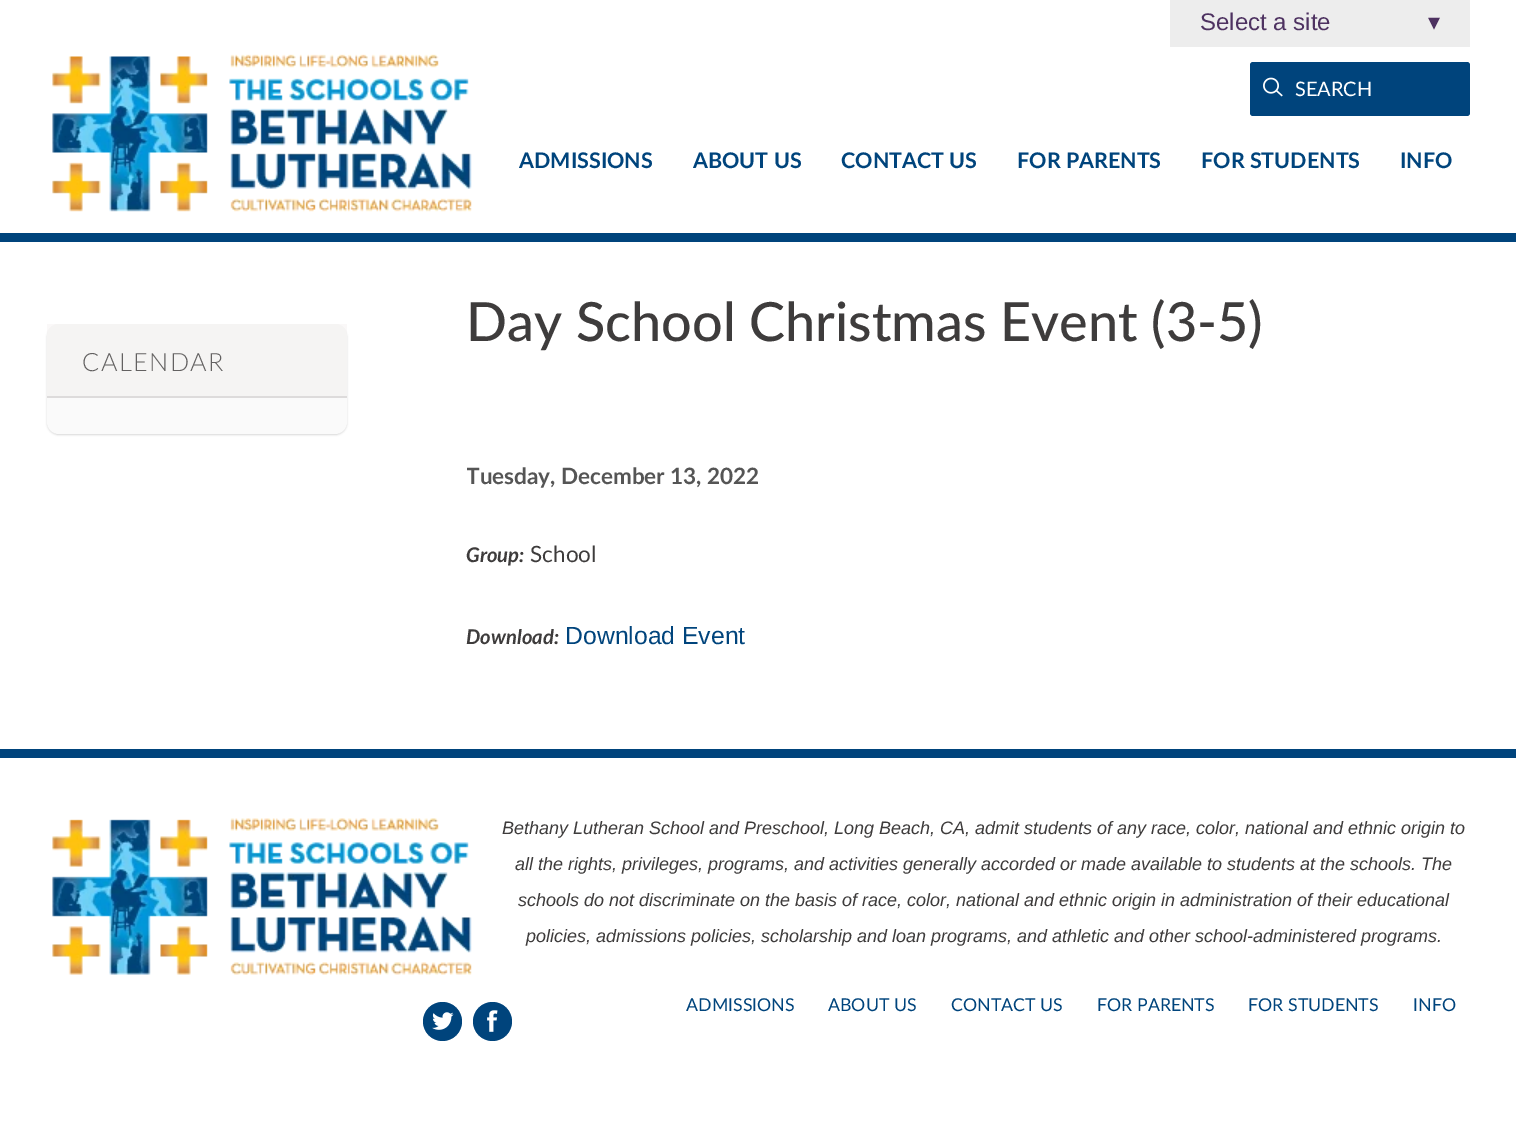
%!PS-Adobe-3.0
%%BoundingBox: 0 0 1516 1123
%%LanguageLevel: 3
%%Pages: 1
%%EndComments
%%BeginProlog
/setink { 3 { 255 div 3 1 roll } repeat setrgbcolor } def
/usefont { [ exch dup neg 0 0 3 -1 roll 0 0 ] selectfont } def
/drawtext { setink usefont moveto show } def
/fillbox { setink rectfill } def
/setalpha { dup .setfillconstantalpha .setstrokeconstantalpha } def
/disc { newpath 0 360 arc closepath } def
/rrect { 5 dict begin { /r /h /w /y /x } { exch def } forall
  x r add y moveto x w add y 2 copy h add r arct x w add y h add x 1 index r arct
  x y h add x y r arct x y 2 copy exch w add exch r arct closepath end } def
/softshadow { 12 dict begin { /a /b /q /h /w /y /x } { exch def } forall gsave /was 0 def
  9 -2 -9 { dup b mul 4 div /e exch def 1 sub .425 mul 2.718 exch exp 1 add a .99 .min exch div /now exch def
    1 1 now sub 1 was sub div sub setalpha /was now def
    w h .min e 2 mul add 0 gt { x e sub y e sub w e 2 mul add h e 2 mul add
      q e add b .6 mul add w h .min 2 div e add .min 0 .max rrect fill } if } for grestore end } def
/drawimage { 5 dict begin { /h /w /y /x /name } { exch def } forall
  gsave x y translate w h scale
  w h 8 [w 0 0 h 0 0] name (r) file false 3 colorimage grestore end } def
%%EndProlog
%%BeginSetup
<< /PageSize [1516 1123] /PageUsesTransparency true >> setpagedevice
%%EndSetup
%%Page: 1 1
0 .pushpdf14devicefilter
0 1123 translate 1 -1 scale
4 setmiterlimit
0 0 1516 1123 255 255 255 fillbox
1170 0 300 47 237 237 237 fillbox
(Select a site) 1200 30 /LiberationSans-Regular 24 78 50 97 drawtext
(▾) 1428 30 /DejaVuSans-Regular 24 78 50 97 drawtext
0 233 1516 9 0 68 124 fillbox
(assets/img1.rgb) 52 54 420 158 drawimage
1250 62 220 54 3 rrect fill
(assets/img2.rgb) 1263 77 20 20 drawimage
(SEARCH) 1295 96 /Lato-Regular 20 255 255 255 drawtext
(ADMISSIONS) 519 168 /Lato-Bold 21.5 0 68 124 drawtext
(ABOUT US) 693 168 /Lato-Bold 21.5 0 68 124 drawtext
(CONTACT US) 841 168 /Lato-Bold 21.5 0 68 124 drawtext
(FOR PARENTS) 1017 168 /Lato-Bold 21.5 0 68 124 drawtext
(FOR STUDENTS) 1201 168 /Lato-Bold 21.5 0 68 124 drawtext
(INFO) 1400 168 /Lato-Bold 21.5 0 68 124 drawtext
(Day School Christmas Event \(3-5\)) 466 341 /Lato-Medium 54 62 60 60 drawtext
0 0 0 setink
47 326 300 109 12 1 0.15 softshadow
250 250 250 setink
47 324 300 110 12 rrect fill
0.04 setalpha
47 324 300 72 125 85 79 fillbox
1 setalpha
47 396 300 2 221 219 219 fillbox
/Lato-Light 25.25 usefont
99 97 97 setink
82 371 moveto 1.5 0 (CALENDAR) ashow
gsave
467 398 1003 351 rectclip
(Tuesday, December 13, 2022) 466 484 /Lato-Bold 22.5 85 85 85 drawtext
grestore
(Group:) 466 562 /Lato-BoldItalic 20.25 62 60 60 drawtext
(School) 530 562 /Lato-Regular 22.5 62 60 60 drawtext
(Download:) 466 644 /Lato-BoldItalic 20.25 62 60 60 drawtext
(Download Event) 565 644 /LiberationSans-Regular 24.75 0 68 124 drawtext
0 749 1516 9 0 68 124 fillbox
(assets/img3.rgb) 52 818 420 157 drawimage
(Bethany Lutheran School and Preschool, Long Beach, CA, admit students of any race, color, national and ethnic origin to) 502 834 /LiberationSans-Italic 18 62 60 60 drawtext
(all the rights, privileges, programs, and activities generally accorded or made available to students at the schools. The) 515 870 /LiberationSans-Italic 18 62 60 60 drawtext
(schools do not discriminate on the basis of race, color, national and ethnic origin in administration of their educational) 518 906 /LiberationSans-Italic 18 62 60 60 drawtext
(policies, admissions policies, scholarship and loan programs, and athletic and other school-administered programs.) 526 942 /LiberationSans-Italic 18 62 60 60 drawtext
0 68 124 setink
442.5 1021.5 19.5 disc fill
(assets/img4.rgb) 432 1012 22 18 drawimage
492.5 1021.5 19.5 disc fill
(assets/img5.rgb) 487 1010 11 22 drawimage
(ADMISSIONS) 686 1011 /Lato-Regular 17.75 0 68 124 drawtext
(ABOUT US) 828 1011 /Lato-Regular 17.75 0 68 124 drawtext
(CONTACT US) 951 1011 /Lato-Regular 17.75 0 68 124 drawtext
(FOR PARENTS) 1097 1011 /Lato-Regular 17.75 0 68 124 drawtext
(FOR STUDENTS) 1248 1011 /Lato-Regular 17.75 0 68 124 drawtext
(INFO) 1413 1011 /Lato-Regular 17.75 0 68 124 drawtext
.poppdf14devicefilter showpage
%%EOF
